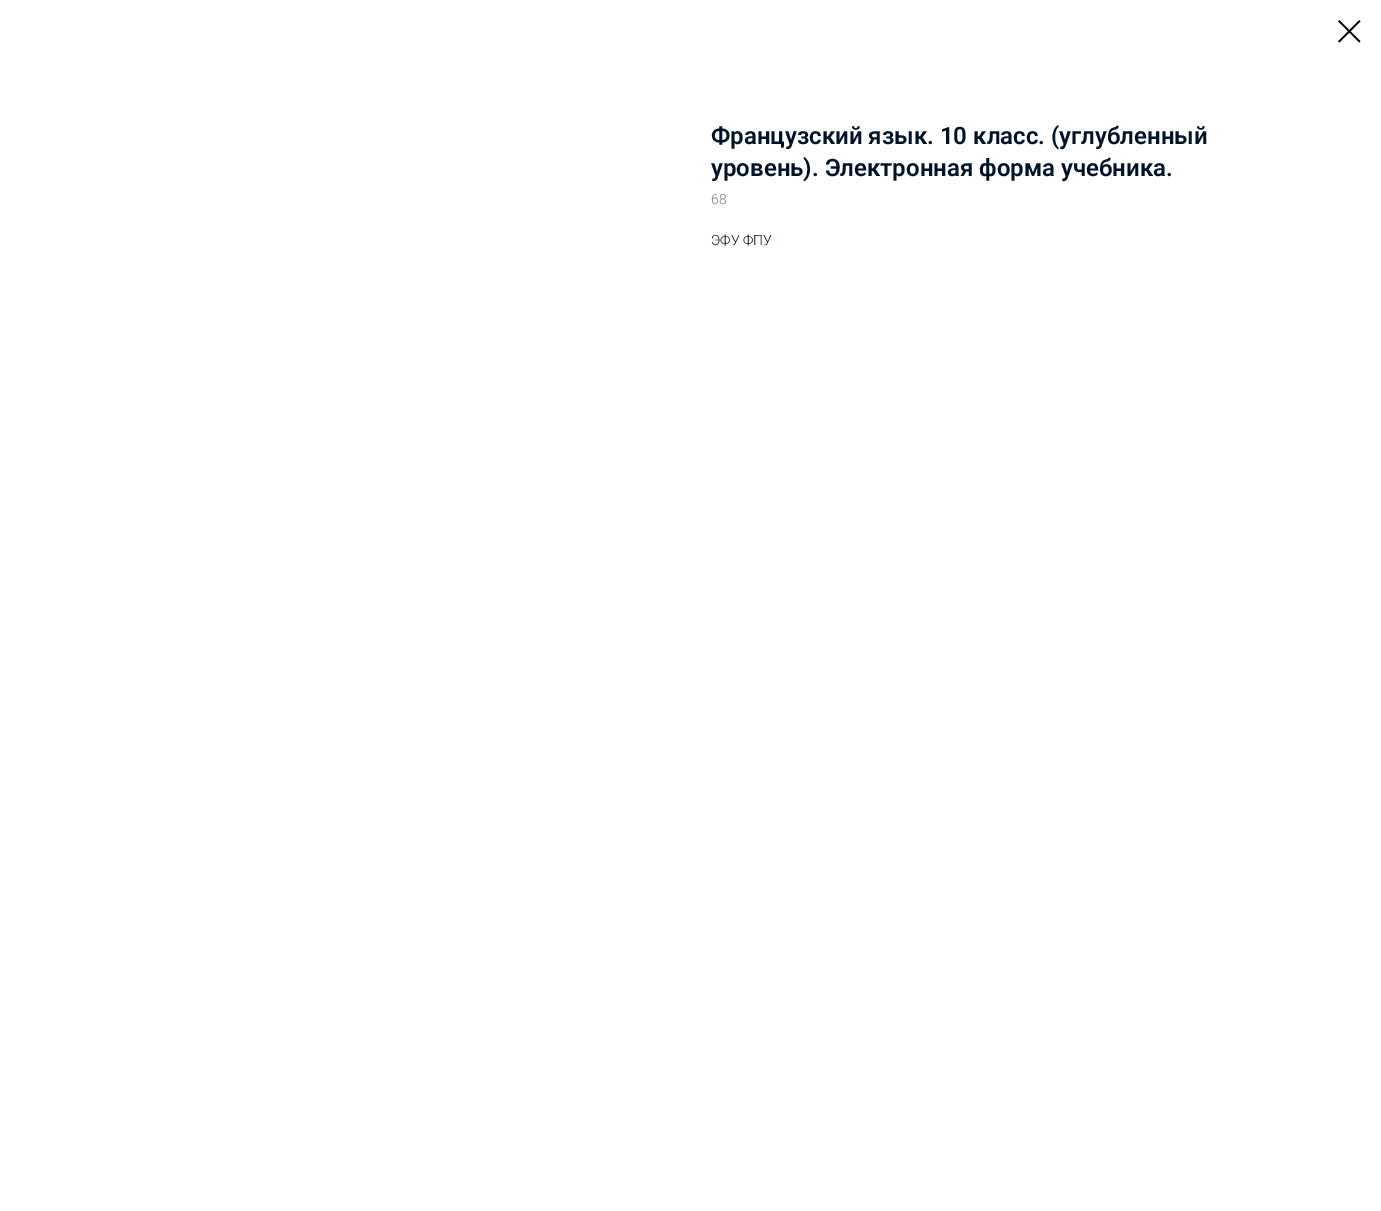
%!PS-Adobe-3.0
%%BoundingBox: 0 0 1381 1211
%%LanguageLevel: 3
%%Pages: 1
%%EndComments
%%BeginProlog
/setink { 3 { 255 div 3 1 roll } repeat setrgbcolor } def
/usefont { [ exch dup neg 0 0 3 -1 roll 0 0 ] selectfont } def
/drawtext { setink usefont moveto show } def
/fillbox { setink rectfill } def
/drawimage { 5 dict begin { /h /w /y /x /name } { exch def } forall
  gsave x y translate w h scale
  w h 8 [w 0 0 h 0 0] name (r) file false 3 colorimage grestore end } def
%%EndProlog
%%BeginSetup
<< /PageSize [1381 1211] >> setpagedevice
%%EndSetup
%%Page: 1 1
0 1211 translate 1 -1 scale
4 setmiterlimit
0 0 1381 1211 255 255 255 fillbox
(assets/img1.rgb) 1338 20 23 23 drawimage
(Французский язык. 10 класс. \(углубленный) 711 144 /Roboto-SemiBold 24 0 19 41 drawtext
(уровень\). Электронная форма учебника.) 711 176 /Roboto-SemiBold 24 0 19 41 drawtext
(68) 711 204 /Roboto-Light 14 119 119 119 drawtext
(ЭФУ ФПУ) 711 245 /Roboto-Light 14 0 19 41 drawtext
showpage
%%EOF
